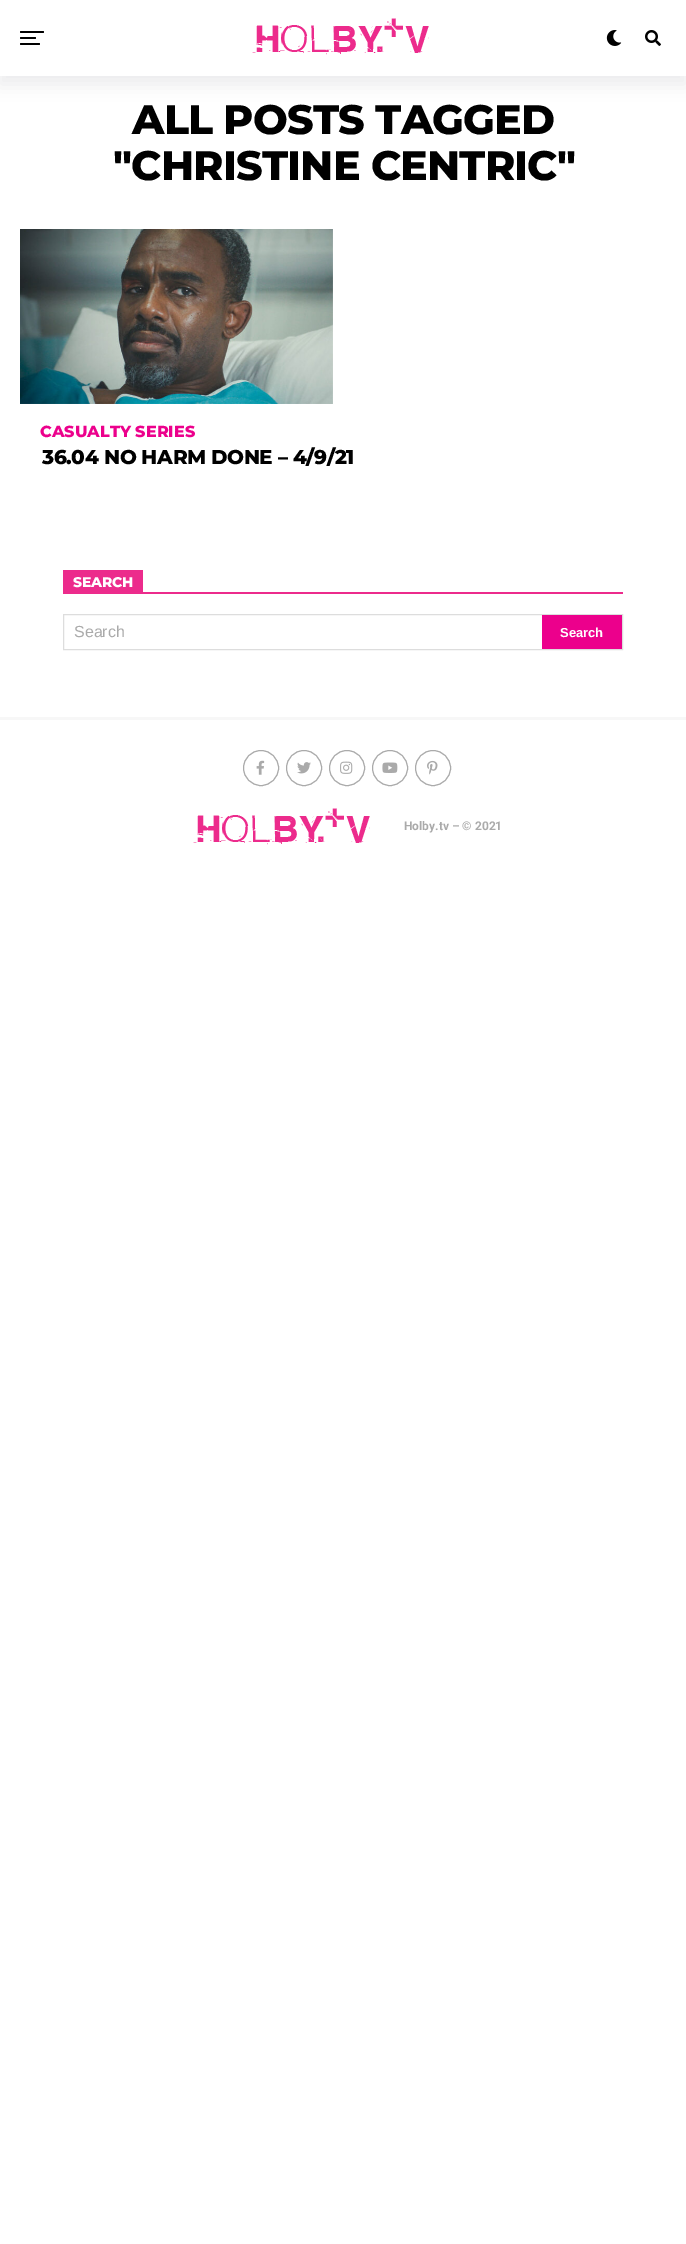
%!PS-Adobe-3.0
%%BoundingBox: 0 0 686 2244
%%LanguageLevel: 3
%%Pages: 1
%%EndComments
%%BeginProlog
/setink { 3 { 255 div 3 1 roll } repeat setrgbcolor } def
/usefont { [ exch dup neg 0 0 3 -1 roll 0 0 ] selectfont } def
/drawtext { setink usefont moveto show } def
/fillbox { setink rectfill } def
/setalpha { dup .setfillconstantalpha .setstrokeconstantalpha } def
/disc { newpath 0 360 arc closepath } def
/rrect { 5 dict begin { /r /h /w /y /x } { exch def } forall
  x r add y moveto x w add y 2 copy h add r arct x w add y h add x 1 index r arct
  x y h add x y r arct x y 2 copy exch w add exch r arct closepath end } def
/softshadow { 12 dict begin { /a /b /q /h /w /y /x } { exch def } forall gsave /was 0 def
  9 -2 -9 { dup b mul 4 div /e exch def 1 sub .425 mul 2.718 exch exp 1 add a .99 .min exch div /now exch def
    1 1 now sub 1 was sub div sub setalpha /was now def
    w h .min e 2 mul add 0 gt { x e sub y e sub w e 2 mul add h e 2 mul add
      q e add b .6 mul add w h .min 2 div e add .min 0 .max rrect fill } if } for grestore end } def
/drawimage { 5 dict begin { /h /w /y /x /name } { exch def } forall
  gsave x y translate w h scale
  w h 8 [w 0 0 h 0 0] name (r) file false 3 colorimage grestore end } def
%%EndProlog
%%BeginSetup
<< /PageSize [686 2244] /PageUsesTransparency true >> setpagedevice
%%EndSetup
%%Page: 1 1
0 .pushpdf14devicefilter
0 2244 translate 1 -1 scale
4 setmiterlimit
0 0 686 2244 255 255 255 fillbox
21 21 30 setink
0 8 686 76 0 8 0.08 softshadow
0 0 686 76 255 255 255 fillbox
0 0 0 setink
20 31 24 2 1 rrect fill
20 37 16 2 1 rrect fill
20 43 20 2 1 rrect fill
(assets/img1.rgb) 252 18 177 37 drawimage
(assets/img2.rgb) 606 30 16 16 drawimage
(assets/img3.rgb) 645 30 16 16 drawimage
/Montserrat-ExtraBold 41.2 usefont
132 134 moveto -0.8 0 (ALL POSTS TAGGED) ashow
113 180 moveto -0.8 0 ("CHRISTINE CENTRIC") ashow
(assets/img4.rgb) 20 229 313 175 drawimage
(CASUALTY SERIES) 40 437 /Montserrat-ExtraBold 16 236 0 140 drawtext
/Montserrat-ExtraBold 20 usefont
0 0 0 setink
42 464 moveto -0.4 0 (36.04 NO HARM DONE – 4/9/21) ashow
63 592 560 2 236 43 140 fillbox
63 570 80 22 236 43 140 fillbox
/Montserrat-ExtraBold 14 usefont
255 255 255 setink
73 587 moveto -0.25 0 (SEARCH) ashow
221 221 221 setink
63.5 614.5 559 35 rectstroke
(Search) 74 637 /LiberationSans-Regular 16 170 170 170 drawtext
542 615 80 34 236 0 140 fillbox
(Search) 560 637 /LiberationSans-Bold 13 255 255 255 drawtext
0 717 686 3 247 247 247 fillbox
170 170 170 setink
261 768 17.5 disc stroke
(assets/img5.rgb) 256 760 9 15 drawimage
304 768 17.5 disc stroke
(assets/img6.rgb) 297 762 14 12 drawimage
347 768 17.5 disc stroke
(assets/img7.rgb) 340 761 13 13 drawimage
390 768 17.5 disc stroke
(assets/img8.rgb) 382 762 16 11 drawimage
433 768 17.5 disc stroke
(assets/img9.rgb) 427 760 11 15 drawimage
(assets/img1.rgb) 193 808 177 37 drawimage
(Holby.tv – © 2021) 404 830 /Roboto-Bold 12 170 170 170 drawtext
.poppdf14devicefilter showpage
%%EOF
